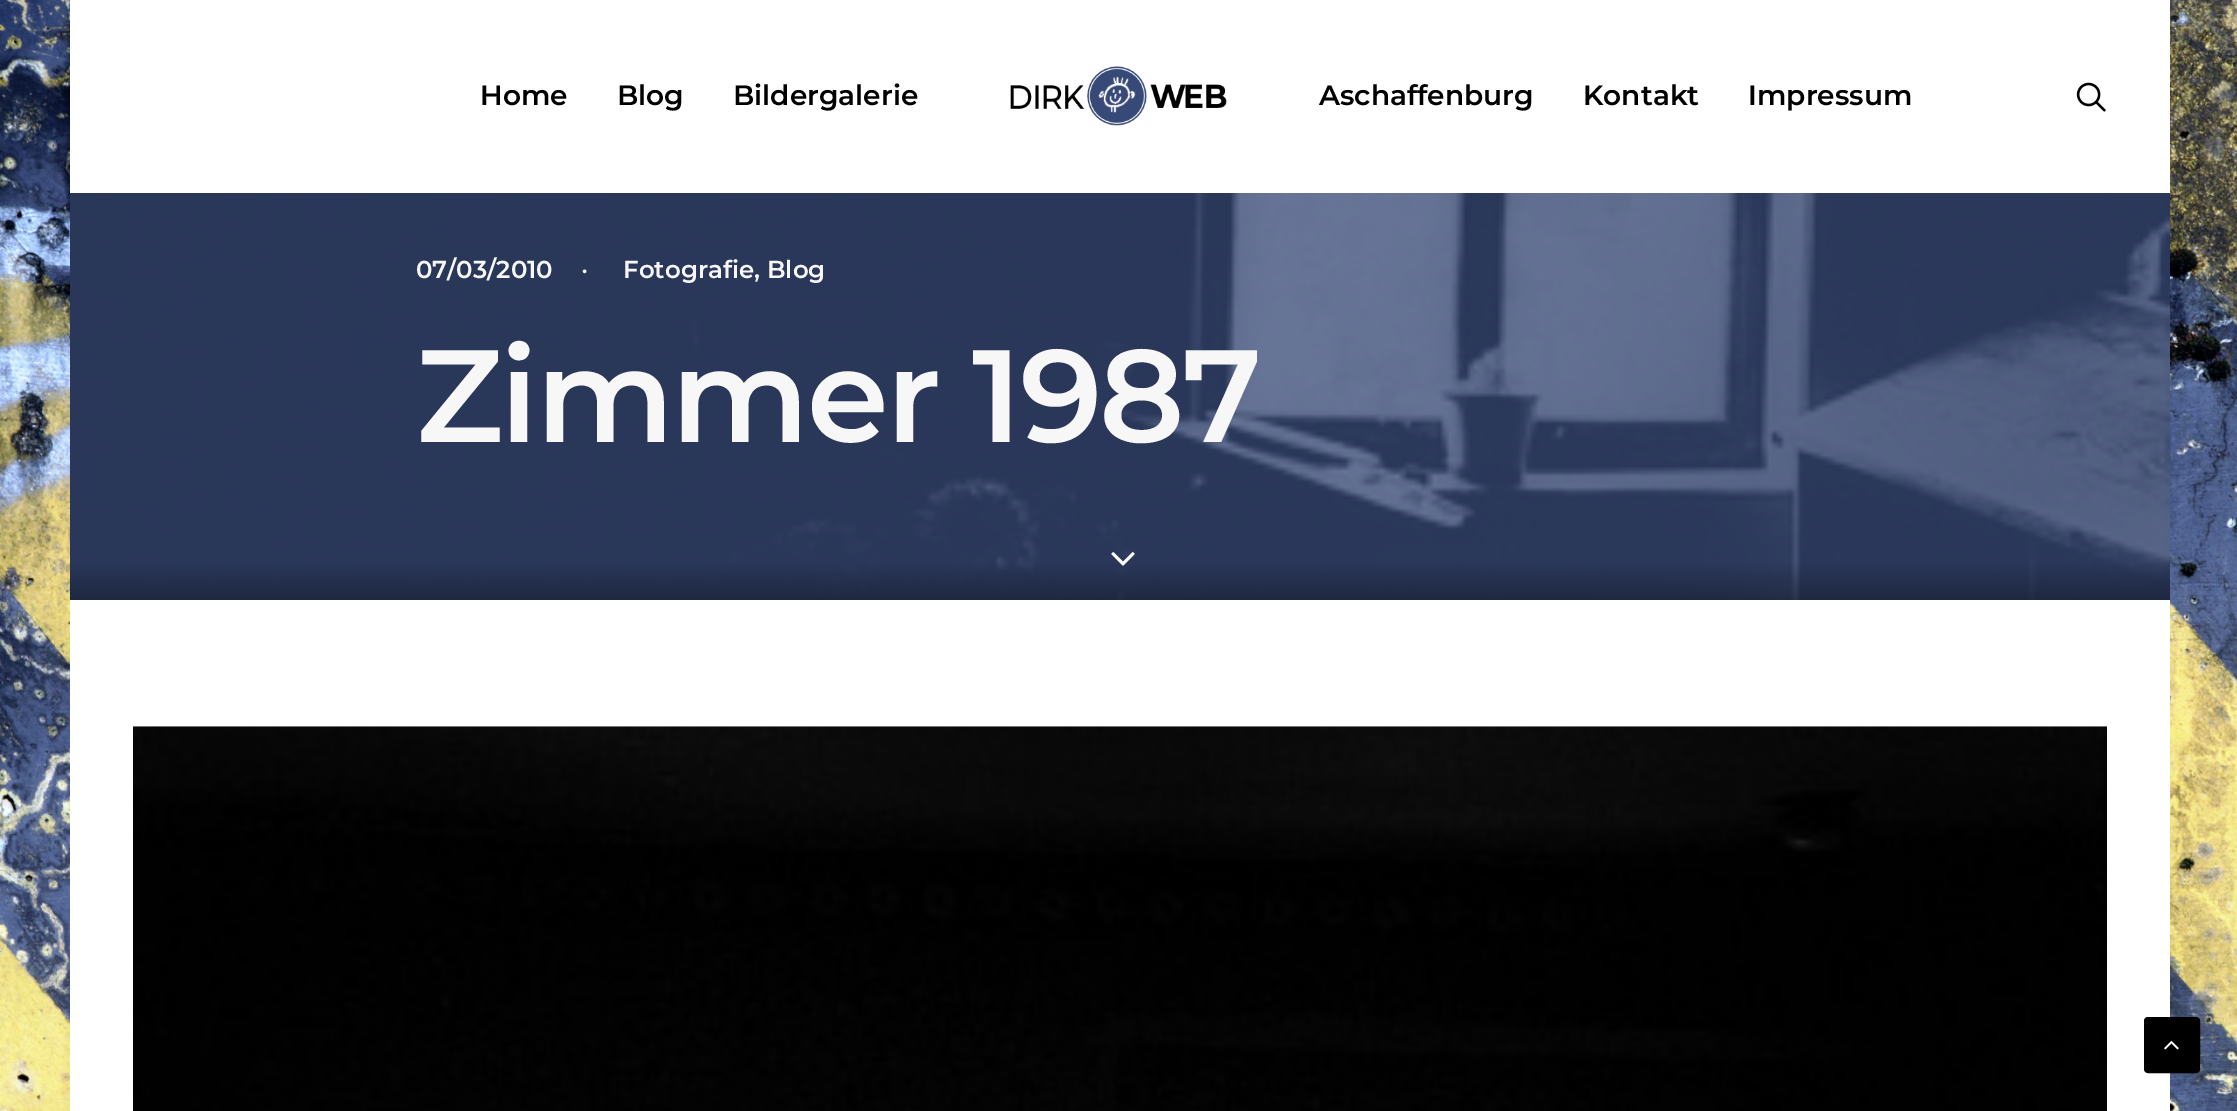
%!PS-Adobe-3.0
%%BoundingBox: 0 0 2237 1111
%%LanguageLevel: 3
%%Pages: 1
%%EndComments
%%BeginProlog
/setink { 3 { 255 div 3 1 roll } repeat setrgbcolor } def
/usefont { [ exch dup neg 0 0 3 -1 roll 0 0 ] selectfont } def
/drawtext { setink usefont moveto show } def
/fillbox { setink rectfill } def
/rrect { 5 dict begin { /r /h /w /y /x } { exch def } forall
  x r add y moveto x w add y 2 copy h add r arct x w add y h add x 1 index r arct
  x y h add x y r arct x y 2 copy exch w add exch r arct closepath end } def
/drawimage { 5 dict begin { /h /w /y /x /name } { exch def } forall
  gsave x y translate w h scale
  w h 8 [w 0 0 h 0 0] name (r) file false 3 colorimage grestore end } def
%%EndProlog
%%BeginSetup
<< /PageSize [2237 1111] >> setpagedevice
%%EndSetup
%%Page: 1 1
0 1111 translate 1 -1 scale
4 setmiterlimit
0 0 2237 1111 255 255 255 fillbox
(assets/img1.rgb) 0 0 2237 1111 drawimage
70 0 2100 193 255 255 255 fillbox
(Home) 480 105 /Montserrat-Thin 28 0 0 0 drawtext
(Blog) 617 105 /Montserrat-Thin 28 0 0 0 drawtext
(Bildergalerie) 733 105 /Montserrat-Thin 28 0 0 0 drawtext
(assets/img2.rgb) 1010 66 217 60 drawimage
(Aschaffenburg) 1319 105 /Montserrat-Thin 28 0 0 0 drawtext
(Kontakt) 1583 105 /Montserrat-Thin 28 0 0 0 drawtext
(Impressum) 1748 105 /Montserrat-Thin 28 0 0 0 drawtext
(assets/img3.rgb) 2076 82 30 30 drawimage
(assets/img4.rgb) 70 193 2100 407 drawimage
(07/03/2010) 416 278 /Montserrat-Thin 24.5 247 247 247 drawtext
(•) 581 278 /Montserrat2-Thin 24.5 247 247 247 drawtext
(Fotografie, Blog) 623 278 /Montserrat-Thin 24.5 247 247 247 drawtext
/Montserrat-Thin 131.25 usefont
416 442 moveto -2.6 0 (Zimmer 1987) ashow
(assets/img5.rgb) 1111 552 24 14 drawimage
70 600 2100 511 255 255 255 fillbox
(assets/img6.rgb) 133 726 1974 385 drawimage
0 0 0 setink
2145 1018 54 54 3 rrect gsave fill grestore
2 setlinewidth
stroke
(assets/img7.rgb) 2164 1040 15 10 drawimage
showpage
%%EOF
